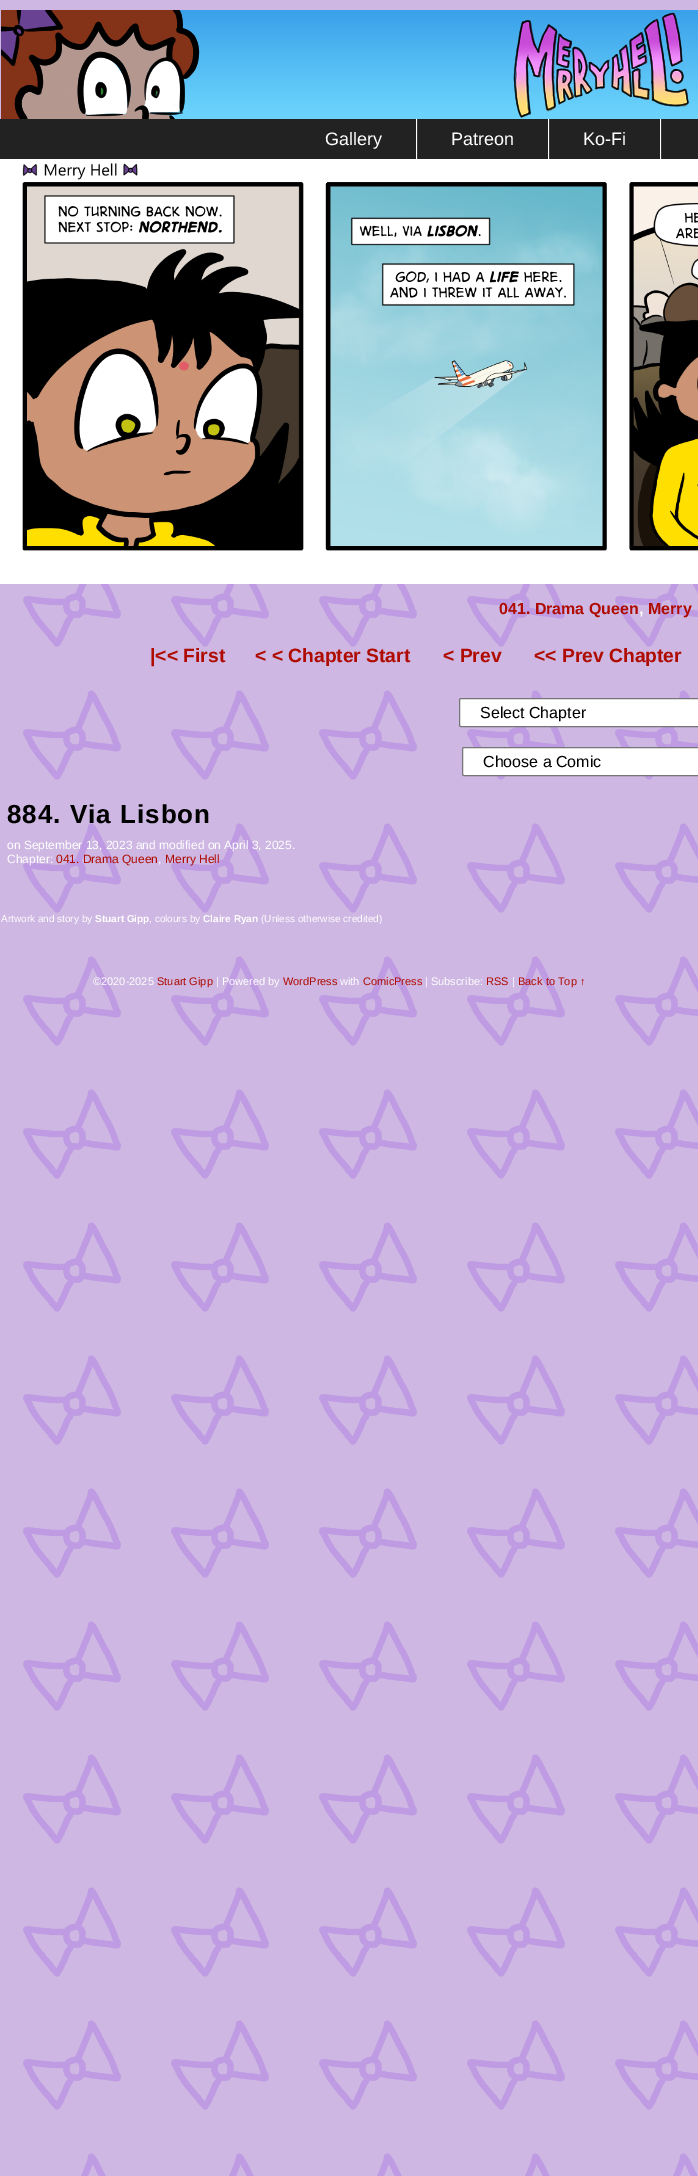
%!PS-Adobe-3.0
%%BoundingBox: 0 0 698 2176
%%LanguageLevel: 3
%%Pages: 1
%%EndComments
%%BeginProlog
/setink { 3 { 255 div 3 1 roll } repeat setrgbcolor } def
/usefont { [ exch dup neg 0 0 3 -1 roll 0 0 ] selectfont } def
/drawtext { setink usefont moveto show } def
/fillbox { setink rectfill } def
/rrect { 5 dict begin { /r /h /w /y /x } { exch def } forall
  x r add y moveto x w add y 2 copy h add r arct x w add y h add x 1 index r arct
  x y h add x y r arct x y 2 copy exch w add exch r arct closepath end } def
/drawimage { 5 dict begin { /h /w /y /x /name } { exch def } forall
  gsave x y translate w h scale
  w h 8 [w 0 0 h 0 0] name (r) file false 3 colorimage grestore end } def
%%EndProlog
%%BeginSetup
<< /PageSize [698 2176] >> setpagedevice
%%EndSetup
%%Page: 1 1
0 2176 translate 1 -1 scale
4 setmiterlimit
0 0 698 2176 255 255 255 fillbox
(assets/img1.rgb) 0 0 698 2176 drawimage
(assets/img2.rgb) 1 10 697 109 drawimage
0 119 698 40 34 34 34 fillbox
(Gallery) 325 145 /LiberationSans-Regular 18 255 255 255 drawtext
417 119 1 40 56 56 56 fillbox
416 119 1 40 255 255 255 fillbox
(Patreon) 451 145 /LiberationSans-Regular 18 255 255 255 drawtext
549 119 1 40 56 56 56 fillbox
548 119 1 40 255 255 255 fillbox
(Ko-Fi) 583 145 /LiberationSans-Regular 18 255 255 255 drawtext
661 119 1 40 56 56 56 fillbox
660 119 1 40 255 255 255 fillbox
(assets/img3.rgb) 0 159 698 425 drawimage
(041. Drama Queen) 499 614 /LiberationSans-Bold 16 176 11 0 drawtext
(,) 639 614 /LiberationSans-Bold 16 255 255 255 drawtext
(Merry) 648 614 /LiberationSans-Bold 16 176 11 0 drawtext
(|<< First) 150 662 /LiberationSans-Bold 19.25 176 11 0 drawtext
(< < Chapter Start) 255 662 /LiberationSans-Bold 19.25 176 11 0 drawtext
(< Prev) 443 662 /LiberationSans-Bold 19.25 176 11 0 drawtext
(<< Prev Chapter) 534 662 /LiberationSans-Bold 19.25 176 11 0 drawtext
255 255 255 setink
459.5 698.5 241 28 1.5 rrect gsave fill grestore
118 118 118 setink
stroke
(Select Chapter) 480 718 /LiberationSans-Regular 16 0 0 0 drawtext
255 255 255 setink
462.5 747.5 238 28 1.5 rrect gsave fill grestore
118 118 118 setink
stroke
(Choose a Comic) 483 767 /LiberationSans-Regular 16 0 0 0 drawtext
/LiberationSans-Bold 26 usefont
7 823 moveto 1 0 (884. Via Lisbon) ashow
(on September 13, 2023 and modified on April 3, 2025.) 7 849 /LiberationSans-Regular 12 255 255 255 drawtext
(Chapter:) 7 863 /LiberationSans-Regular 12 255 255 255 drawtext
(041. Drama Queen) 56 863 /LiberationSans-Regular 12 176 11 0 drawtext
(,) 158 863 /LiberationSans-Regular 12 255 255 255 drawtext
(Merry Hell) 165 863 /LiberationSans-Regular 12 176 11 0 drawtext
(Artwork and story by) 1 922 /LiberationSans-Regular 10 255 255 255 drawtext
(Stuart Gipp) 95 922 /LiberationSans-Bold 10 255 255 255 drawtext
(, colours by) 149 922 /LiberationSans-Regular 10 255 255 255 drawtext
(Claire Ryan) 203 922 /LiberationSans-Bold 10 255 255 255 drawtext
(\(Unless otherwise credited\)) 261 922 /LiberationSans-Regular 10 255 255 255 drawtext
(©2020-2025) 93 985 /LiberationSans-Regular 11 255 255 255 drawtext
(Stuart Gipp) 157 985 /LiberationSans-Regular 11 176 11 0 drawtext
(| Powered by) 216 985 /LiberationSans-Regular 11 255 255 255 drawtext
(WordPress) 283 985 /LiberationSans-Regular 11 176 11 0 drawtext
(with) 340 985 /LiberationSans-Regular 11 255 255 255 drawtext
(ComicPress) 363 985 /LiberationSans-Regular 11 176 11 0 drawtext
(| Subscribe:) 425 985 /LiberationSans-Regular 11 255 255 255 drawtext
(RSS) 486 985 /LiberationSans-Regular 11 176 11 0 drawtext
(|) 512 985 /LiberationSans-Regular 11 255 255 255 drawtext
(Back to Top ↑) 518 985 /LiberationSans-Regular 11 176 11 0 drawtext
showpage
%%EOF
